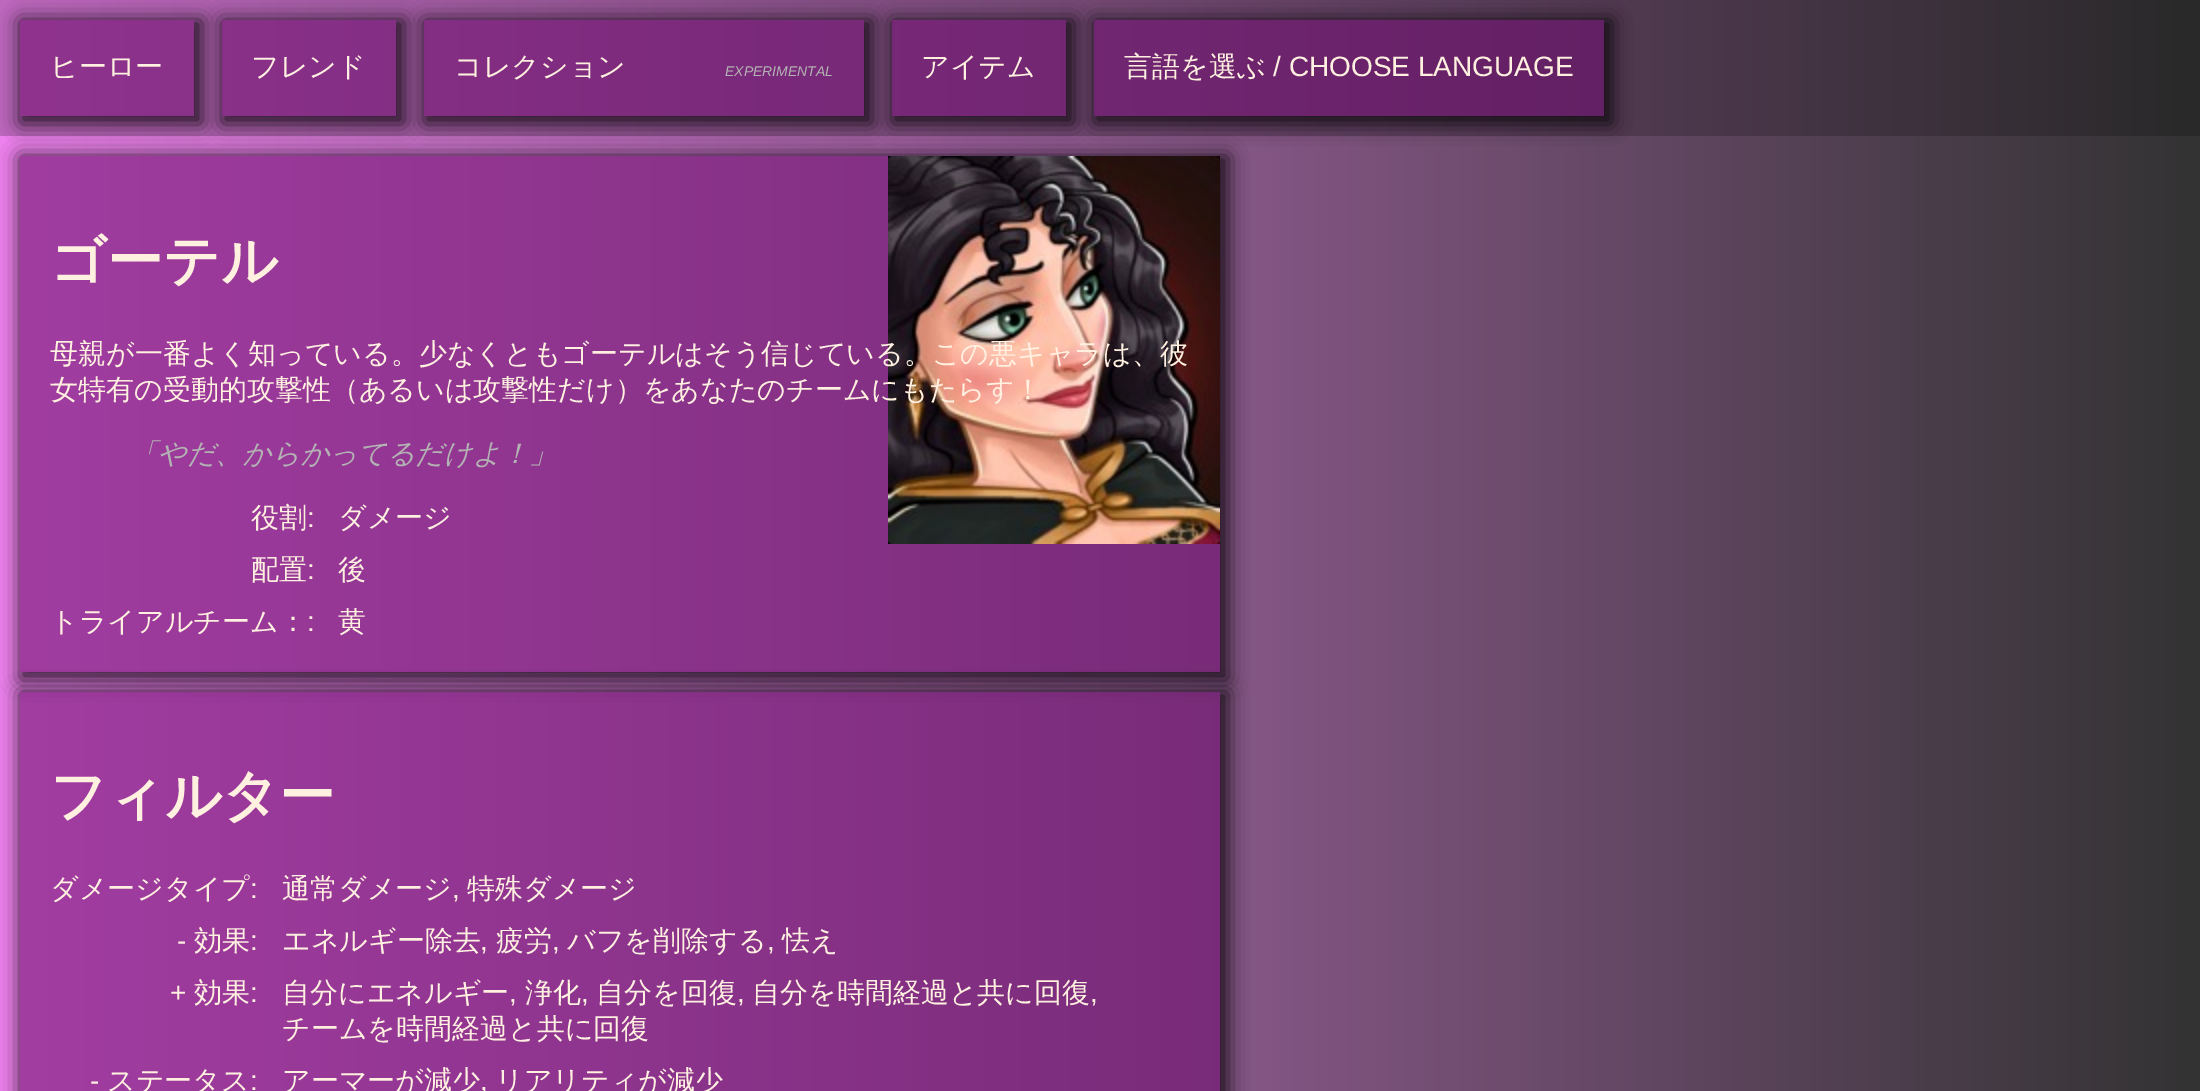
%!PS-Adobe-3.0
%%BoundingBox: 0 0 2200 1091
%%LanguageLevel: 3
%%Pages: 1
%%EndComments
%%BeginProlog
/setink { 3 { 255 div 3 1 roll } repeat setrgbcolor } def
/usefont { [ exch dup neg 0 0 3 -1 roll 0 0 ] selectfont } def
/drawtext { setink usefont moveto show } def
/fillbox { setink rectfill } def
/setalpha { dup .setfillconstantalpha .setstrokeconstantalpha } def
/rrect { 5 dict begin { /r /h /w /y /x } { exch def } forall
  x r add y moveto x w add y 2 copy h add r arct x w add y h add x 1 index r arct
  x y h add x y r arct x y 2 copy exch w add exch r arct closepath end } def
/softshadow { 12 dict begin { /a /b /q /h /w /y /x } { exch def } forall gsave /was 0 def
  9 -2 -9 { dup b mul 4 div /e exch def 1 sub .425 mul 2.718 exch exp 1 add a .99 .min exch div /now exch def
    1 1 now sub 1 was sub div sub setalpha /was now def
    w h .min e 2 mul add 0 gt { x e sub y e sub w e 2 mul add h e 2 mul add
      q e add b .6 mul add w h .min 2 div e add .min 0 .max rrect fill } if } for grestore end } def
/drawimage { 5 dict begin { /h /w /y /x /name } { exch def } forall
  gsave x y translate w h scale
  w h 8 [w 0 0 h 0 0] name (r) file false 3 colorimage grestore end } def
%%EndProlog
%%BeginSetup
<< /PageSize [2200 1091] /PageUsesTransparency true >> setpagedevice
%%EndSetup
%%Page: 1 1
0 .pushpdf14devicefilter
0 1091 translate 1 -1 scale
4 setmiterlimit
0 0 2200 1091 255 255 255 fillbox
gsave 0 136 moveto 2200 136 lineto 2200 1091 lineto 0 1091 lineto closepath clip newpath
<< /ShadingType 2 /ColorSpace /DeviceRGB /Coords [0 546 2200 546] /Extend [true true] /Function << /FunctionType 2 /Domain [0 1] /C0 [0.933 0.51 0.933] /C1 [0.2 0.2 0.2] /N 1 >> >> shfill grestore
gsave 20 156 moveto 1220 156 lineto 1220 672 lineto 20 672 lineto closepath clip newpath
<< /ShadingType 2 /ColorSpace /DeviceRGB /Coords [0 546 2200 546] /Extend [true true] /Function << /FunctionType 2 /Domain [0 1] /C0 [0.635 0.239 0.635] /C1 [0.345 0.114 0.345] /N 1 >> >> shfill grestore
gsave 0 0 moveto 2200 0 lineto 2200 136 lineto 0 136 lineto closepath clip newpath
<< /ShadingType 2 /ColorSpace /DeviceRGB /Coords [0 546 2200 546] /Extend [true true] /Function << /FunctionType 2 /Domain [0 1] /C0 [0.745 0.408 0.745] /C1 [0.161 0.161 0.161] /N 1 >> >> shfill grestore
gsave 20 20 moveto 194 20 lineto 194 116 lineto 20 116 lineto closepath clip newpath
<< /ShadingType 2 /ColorSpace /DeviceRGB /Coords [0 546 2200 546] /Extend [true true] /Function << /FunctionType 2 /Domain [0 1] /C0 [0.561 0.2 0.561] /C1 [0.329 0.098 0.329] /N 1 >> >> shfill grestore
gsave
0 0 moveto 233 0 lineto 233 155 lineto 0 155 lineto closepath 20 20 moveto 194 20 lineto 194 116 lineto 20 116 lineto closepath eoclip newpath
0 0 0 setink
20 20 182 104 0 10 0.8 softshadow
grestore
(ヒーロー) 50 76 /WenQuanYiZenHei-Medium 28 255 240 224 drawtext
gsave
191 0 moveto 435 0 lineto 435 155 lineto 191 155 lineto closepath 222 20 moveto 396 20 lineto 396 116 lineto 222 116 lineto closepath eoclip newpath
0 0 0 setink
222 20 182 104 0 10 0.8 softshadow
grestore
0.6 setalpha
222 20 174 96 112 15 112 fillbox
1 setalpha
(フレンド) 251 76 /WenQuanYiZenHei-Medium 28 255 240 224 drawtext
gsave
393 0 moveto 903 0 lineto 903 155 lineto 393 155 lineto closepath 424 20 moveto 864 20 lineto 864 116 lineto 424 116 lineto closepath eoclip newpath
0 0 0 setink
424 20 448 104 0 10 0.8 softshadow
grestore
0.6 setalpha
424 20 440 96 112 15 112 fillbox
1 setalpha
(コレクション) 454 76 /WenQuanYiZenHei-Medium 28 255 240 224 drawtext
(EXPERIMENTAL) 725 76 /LiberationSans-Italic 14 179 179 179 drawtext
gsave
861 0 moveto 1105 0 lineto 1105 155 lineto 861 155 lineto closepath 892 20 moveto 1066 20 lineto 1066 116 lineto 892 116 lineto closepath eoclip newpath
0 0 0 setink
892 20 182 104 0 10 0.8 softshadow
grestore
0.6 setalpha
892 20 174 96 112 15 112 fillbox
1 setalpha
(アイテム) 921 76 /WenQuanYiZenHei-Medium 28 255 240 224 drawtext
gsave
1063 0 moveto 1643 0 lineto 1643 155 lineto 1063 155 lineto closepath 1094 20 moveto 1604 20 lineto 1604 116 lineto 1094 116 lineto closepath eoclip newpath
0 0 0 setink
1094 20 518 104 0 10 0.8 softshadow
grestore
0.6 setalpha
1094 20 510 96 112 15 112 fillbox
1 setalpha
(言語を選ぶ) 1124 76 /WenQuanYiZenHei-Medium 28 255 240 224 drawtext
(/ CHOOSE LANGUAGE) 1273 76 /LiberationSans-Regular 28 255 240 224 drawtext
gsave
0 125 moveto 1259 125 lineto 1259 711 lineto 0 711 lineto closepath 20 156 moveto 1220 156 lineto 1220 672 lineto 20 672 lineto closepath eoclip newpath
0 0 0 setink
20 156 1208 524 0 10 0.8 softshadow
grestore
(assets/img1.rgb) 888 156 332 388 drawimage
(ゴーテル) 50 280 /WenQuanYiZenHei-Bold 56 255 240 224 drawtext
(母親が一番よく知っている。少なくともゴーテルはそう信じている。この悪キャラは、彼) 50 363 /WenQuanYiZenHei-Medium 28 255 240 224 drawtext
(女特有の受動的攻撃性（あるいは攻撃性だけ）をあなたのチームにもたらす！) 50 399 /WenQuanYiZenHei-Medium 28 255 240 224 drawtext
(「やだ、からかってるだけよ！」) 130 463 /WenQuanYiZenHei-MediumItalic 28 179 179 179 drawtext
(役割) 251 527 /WenQuanYiZenHei-Medium 28 255 240 224 drawtext
(:) 307 527 /LiberationSans-Regular 28 255 240 224 drawtext
(ダメージ) 338 527 /WenQuanYiZenHei-Medium 28 255 240 224 drawtext
(配置) 251 579 /WenQuanYiZenHei-Medium 28 255 240 224 drawtext
(:) 307 579 /LiberationSans-Regular 28 255 240 224 drawtext
(後) 338 579 /WenQuanYiZenHei-Medium 28 255 240 224 drawtext
(トライアルチーム：) 50 631 /WenQuanYiZenHei-Medium 28 255 240 224 drawtext
(:) 307 631 /LiberationSans-Regular 28 255 240 224 drawtext
(黄) 338 631 /WenQuanYiZenHei-Medium 28 255 240 224 drawtext
gsave
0 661 moveto 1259 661 lineto 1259 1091 lineto 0 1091 lineto closepath 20 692 moveto 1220 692 lineto 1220 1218 lineto 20 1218 lineto closepath eoclip newpath
0 0 0 setink
20 692 1208 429 0 10 0.8 softshadow
grestore
0.6 setalpha
20 692 1200 399 112 15 112 fillbox
1 setalpha
(フィルター) 50 815 /WenQuanYiZenHei-Bold 56 255 240 224 drawtext
(ダメージタイプ) 50 898 /WenQuanYiZenHei-Medium 28 255 240 224 drawtext
(:) 250 898 /LiberationSans-Regular 28 255 240 224 drawtext
(通常ダメージ) 282 898 /WenQuanYiZenHei-Medium 28 255 240 224 drawtext
(,) 452 898 /LiberationSans-Regular 28 255 240 224 drawtext
(特殊ダメージ) 467 898 /WenQuanYiZenHei-Medium 28 255 240 224 drawtext
(-) 177 950 /LiberationSans-Regular 28 255 240 224 drawtext
(効果) 194 950 /WenQuanYiZenHei-Medium 28 255 240 224 drawtext
(:) 250 950 /LiberationSans-Regular 28 255 240 224 drawtext
(エネルギー除去) 282 950 /WenQuanYiZenHei-Medium 28 255 240 224 drawtext
(,) 480 950 /LiberationSans-Regular 28 255 240 224 drawtext
(疲労) 496 950 /WenQuanYiZenHei-Medium 28 255 240 224 drawtext
(,) 552 950 /LiberationSans-Regular 28 255 240 224 drawtext
(バフを削除する) 567 950 /WenQuanYiZenHei-Medium 28 255 240 224 drawtext
(,) 767 950 /LiberationSans-Regular 28 255 240 224 drawtext
(怯え) 782 950 /WenQuanYiZenHei-Medium 28 255 240 224 drawtext
(+) 170 1002 /LiberationSans-Regular 28 255 240 224 drawtext
(効果) 194 1002 /WenQuanYiZenHei-Medium 28 255 240 224 drawtext
(:) 250 1002 /LiberationSans-Regular 28 255 240 224 drawtext
(自分にエネルギー) 282 1002 /WenQuanYiZenHei-Medium 28 255 240 224 drawtext
(,) 509 1002 /LiberationSans-Regular 28 255 240 224 drawtext
(浄化) 525 1002 /WenQuanYiZenHei-Medium 28 255 240 224 drawtext
(,) 581 1002 /LiberationSans-Regular 28 255 240 224 drawtext
(自分を回復) 596 1002 /WenQuanYiZenHei-Medium 28 255 240 224 drawtext
(,) 737 1002 /LiberationSans-Regular 28 255 240 224 drawtext
(自分を時間経過と共に回復) 752 1002 /WenQuanYiZenHei-Medium 28 255 240 224 drawtext
(,) 1090 1002 /LiberationSans-Regular 28 255 240 224 drawtext
(チームを時間経過と共に回復) 282 1038 /WenQuanYiZenHei-Medium 28 255 240 224 drawtext
(-) 90 1090 /LiberationSans-Regular 28 255 240 224 drawtext
(ステータス) 107 1090 /WenQuanYiZenHei-Medium 28 255 240 224 drawtext
(:) 250 1090 /LiberationSans-Regular 28 255 240 224 drawtext
(アーマーが減少) 282 1090 /WenQuanYiZenHei-Medium 28 255 240 224 drawtext
(,) 480 1090 /LiberationSans-Regular 28 255 240 224 drawtext
(リアリティが減少) 495 1090 /WenQuanYiZenHei-Medium 28 255 240 224 drawtext
.poppdf14devicefilter showpage
%%EOF
